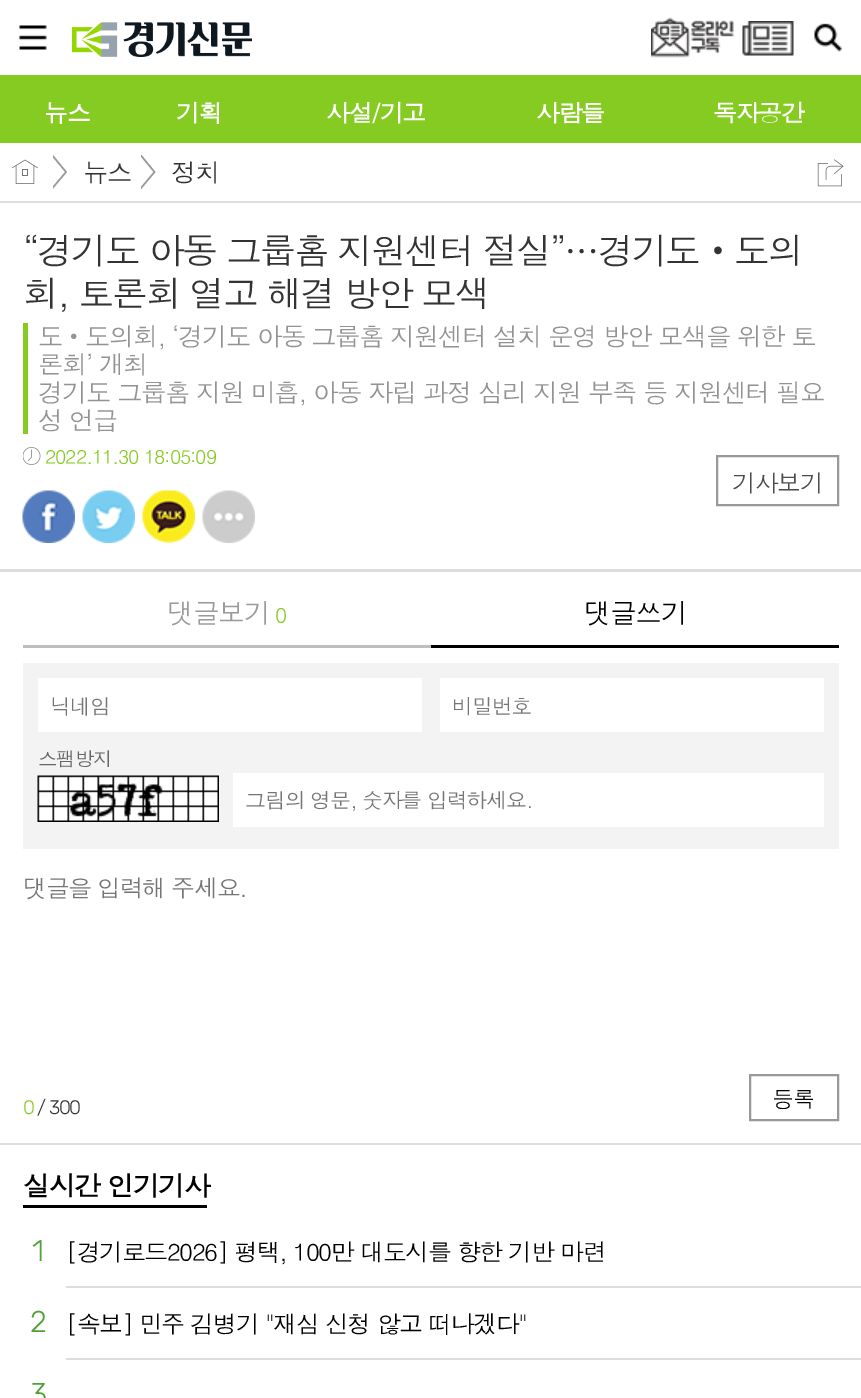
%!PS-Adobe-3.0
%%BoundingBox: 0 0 861 1398
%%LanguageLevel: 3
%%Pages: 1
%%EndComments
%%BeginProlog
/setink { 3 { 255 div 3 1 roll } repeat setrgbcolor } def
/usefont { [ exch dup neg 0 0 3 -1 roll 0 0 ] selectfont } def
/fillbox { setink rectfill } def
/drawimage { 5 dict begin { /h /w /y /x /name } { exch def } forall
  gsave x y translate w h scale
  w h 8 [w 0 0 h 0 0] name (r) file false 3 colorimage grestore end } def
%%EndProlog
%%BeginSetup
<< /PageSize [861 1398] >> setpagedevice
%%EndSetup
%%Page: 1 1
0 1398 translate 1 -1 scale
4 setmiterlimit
0 0 861 1398 255 255 255 fillbox
0 75 861 68 133 203 33 fillbox
(assets/img1.rgb) 19 25 28 25 drawimage
(assets/img2.rgb) 72 22 180 35 drawimage
(assets/img3.rgb) 651 17 83 41 drawimage
(assets/img4.rgb) 742 21 52 35 drawimage
(assets/img5.rgb) 814 23 28 29 drawimage
/Dotum-Bold 24 usefont
255 255 255 setink
44 122 moveto -1.45 0 (뉴스) ashow
176 122 moveto -1.45 0 (기획) ashow
326 122 moveto -1.45 0 (사설/기고) ashow
536 122 moveto -1.45 0 (사람들) ashow
713 122 moveto -1.45 0 (독자공간) ashow
0 201 861 2 222 222 222 fillbox
(assets/img6.rgb) 12 159 26 25 drawimage
gsave
53 155 15 34 rectclip
153 153 153 setink
1.5 setlinewidth
50 152.5 moveto 66 172 lineto 50 191 lineto stroke
grestore
/Dotum-Regular 25.5 usefont
51 51 51 setink
83 182 moveto -1.55 0 (뉴스) ashow
gsave
141 155 15 34 rectclip
153 153 153 setink
1.5 setlinewidth
138.5 152.5 moveto 154.5 172 lineto 138.5 191 lineto stroke
grestore
171 182 moveto -1.55 0 (정치) ashow
(assets/img7.rgb) 817 159 27 28 drawimage
0 1143 861 2 221 221 221 fillbox
0 569 861 3 221 221 221 fillbox
/Dotum-Regular 36 usefont
51 51 51 setink
23 264 moveto -2.2 0 (“경기도 아동 그룹홈 지원센터 절실”…경기도) ashow
/NotoSansCJKKR-Regular 36 usefont
700 264 moveto -2.2 0 (‧) ashow
/Dotum-Regular 36 usefont
734 264 moveto -2.2 0 (도의) ashow
23 307 moveto -2.2 0 (회, 토론회 열고 해결 방안 모색) ashow
23 323 5 111 133 203 33 fillbox
/Dotum-Regular 25.5 usefont
147 147 147 setink
38 346 moveto -1.55 0 (도) ashow
/NotoSansCJKKR-Regular 25.5 usefont
61 346 moveto -1.55 0 (‧) ashow
/Dotum-Regular 25.5 usefont
85 346 moveto -1.55 0 (도의회, ‘경기도 아동 그룹홈 지원센터 설치 운영 방안 모색을 위한 토) ashow
38 374 moveto -1.55 0 (론회’ 개최) ashow
38 402 moveto -1.55 0 (경기도 그룹홈 지원 미흡, 아동 자립 과정 심리 지원 부족 등 지원센터 필요) ashow
38 430 moveto -1.55 0 (성 언급) ashow
(assets/img8.rgb) 23 447 18 18 drawimage
/Dotum-Regular 19.5 usefont
133 203 33 setink
45 464 moveto -1.2 0 (2022.11.30 18:05:09) ashow
153 153 153 setink
2 setlinewidth
717 456 121 49 rectstroke
/Dotum-Regular 24 usefont
76 76 76 setink
732 492 moveto -1.45 0 (기사보기) ashow
(assets/img9.rgb) 22 490 53 53 drawimage
(assets/img10.rgb) 82 490 53 53 drawimage
(assets/img11.rgb) 142 490 53 53 drawimage
(assets/img12.rgb) 202 490 53 53 drawimage
23 645 408 3 192 191 191 fillbox
/Dotum-Regular 27 usefont
154 154 154 setink
167 623 moveto -1.5 0 (댓글보기) ashow
/Dotum-Regular 21 usefont
133 203 33 setink
275 623 moveto -1.25 0 (0) ashow
431 645 408 3 0 0 0 fillbox
/Dotum-Regular 27 usefont
584 623 moveto -1.5 0 (댓글쓰기) ashow
23 663 816 186 243 243 243 fillbox
38 678 384 54 255 255 255 fillbox
/Dotum-Regular 21 usefont
117 117 117 setink
50 714 moveto -1.25 0 (닉네임) ashow
440 678 384 54 255 255 255 fillbox
117 117 117 setink
452 714 moveto -1.25 0 (비밀번호) ashow
/Dotum-Regular 19.5 usefont
102 102 102 setink
38 766 moveto -1.2 0 (스팸방지) ashow
(assets/img13.rgb) 37 775 182 47 drawimage
233 773 591 54 255 255 255 fillbox
/Dotum-Regular 21 usefont
117 117 117 setink
245 808 moveto -1.25 0 (그림의 영문, 숫자를 입력하세요.) ashow
/Dotum-Regular 24 usefont
23 897 moveto -1.45 0 (댓글을 입력해 주세요.) ashow
/Rubik-Light 19.5 usefont
133 203 33 setink
23 1114 moveto -1.2 0 (0) ashow
51 51 51 setink
37 1114 moveto -1.2 0 (/ 300) ashow
153 153 153 setink
750 1075 88 45 rectstroke
/Dotum-Regular 22 usefont
0 0 0 setink
772 1107 moveto -1 0 (등록) ashow
23 1205 184 3 0 0 0 fillbox
/Dotum-Bold 27 usefont
23 1196 moveto -1.5 0 (실시간 인기기사) ashow
/Rubik-Light 30 usefont
77 161 55 setink
32 1261 moveto -2 0 (1) ashow
/Dotum-Regular 24 usefont
0 0 0 setink
66 1261 moveto -1.45 0 ([경기로드2026] 평택, 100만 대도시를 향한 기반 마련) ashow
66 1286 795 2 221 221 221 fillbox
/Rubik-Light 30 usefont
77 161 55 setink
30 1332 moveto -2 0 (2) ashow
/Dotum-Regular 24 usefont
0 0 0 setink
66 1333 moveto -1.45 0 ([속보] 민주 김병기 "재심 신청 않고 떠나겠다") ashow
66 1358 795 2 221 221 221 fillbox
/Rubik-Light 30 usefont
77 161 55 setink
30 1404 moveto -2 0 (3) ashow
showpage
%%EOF
